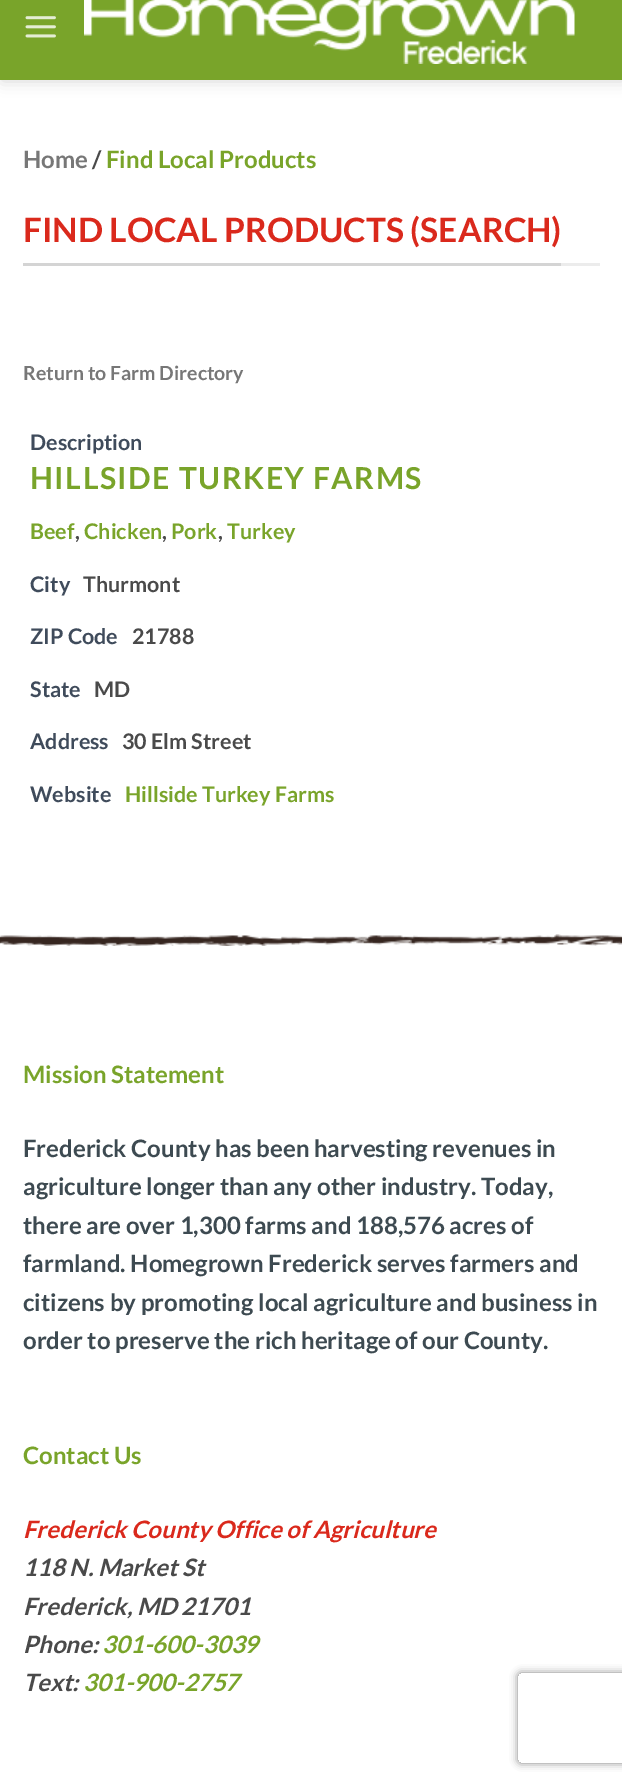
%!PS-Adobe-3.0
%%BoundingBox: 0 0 622 1783
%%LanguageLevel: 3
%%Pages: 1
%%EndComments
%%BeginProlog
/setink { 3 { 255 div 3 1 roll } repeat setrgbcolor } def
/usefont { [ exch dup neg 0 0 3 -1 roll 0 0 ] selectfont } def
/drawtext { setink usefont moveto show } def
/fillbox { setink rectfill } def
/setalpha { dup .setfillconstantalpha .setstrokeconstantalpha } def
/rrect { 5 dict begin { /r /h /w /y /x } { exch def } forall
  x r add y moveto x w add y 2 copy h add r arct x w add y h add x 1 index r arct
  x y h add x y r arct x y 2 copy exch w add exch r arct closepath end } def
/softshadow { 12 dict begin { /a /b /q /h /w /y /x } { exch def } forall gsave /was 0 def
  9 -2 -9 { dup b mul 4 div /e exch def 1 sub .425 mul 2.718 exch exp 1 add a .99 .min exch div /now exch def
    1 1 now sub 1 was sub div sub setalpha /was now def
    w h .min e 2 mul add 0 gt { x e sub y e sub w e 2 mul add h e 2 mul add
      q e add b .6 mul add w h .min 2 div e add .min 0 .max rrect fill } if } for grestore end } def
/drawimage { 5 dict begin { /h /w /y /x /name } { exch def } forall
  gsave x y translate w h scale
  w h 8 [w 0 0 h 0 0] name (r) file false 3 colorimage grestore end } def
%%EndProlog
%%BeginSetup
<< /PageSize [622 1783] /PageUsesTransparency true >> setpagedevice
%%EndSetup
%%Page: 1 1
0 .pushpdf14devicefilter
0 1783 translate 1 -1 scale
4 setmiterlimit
0 0 622 1783 255 255 255 fillbox
0 0 0 setink
2 -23 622 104 0 7.5 0.15 softshadow
0 0 622 80 121 164 42 fillbox
(assets/img1.rgb) 25 16 31 22 drawimage
(assets/img2.rgb) 84 0 491 64 drawimage
(Home) 23 168 /Lato-Bold 24 119 119 119 drawtext
(/) 92 168 /Lato-Bold 24 74 74 74 drawtext
(Find Local Products) 106 168 /Lato-Bold 24 121 164 42 drawtext
561 263 39 3 236 236 236 fillbox
23 263 538 3 212 212 212 fillbox
(FIND LOCAL PRODUCTS \(SEARCH\)) 23 242 /Lato-Bold 33.6 218 41 28 drawtext
(Return to Farm Directory) 23 380 /Lato-Bold 19.5 119 119 119 drawtext
(Description) 30 450 /Lato-Bold 21.5 63 75 91 drawtext
/Lato-Bold 30.25 usefont
121 164 42 setink
30 489 moveto 1.5 0 (HILLSIDE TURKEY FARMS) ashow
(Beef) 30 539 /Lato-Bold 21.5 121 164 42 drawtext
(,) 75 539 /Lato-Bold 21.5 74 74 74 drawtext
(Chicken) 84 539 /Lato-Bold 21.5 121 164 42 drawtext
(,) 162 539 /Lato-Bold 21.5 74 74 74 drawtext
(Pork) 171 539 /Lato-Bold 21.5 121 164 42 drawtext
(,) 218 539 /Lato-Bold 21.5 74 74 74 drawtext
(Turkey) 227 539 /Lato-Bold 21.5 121 164 42 drawtext
(City) 30 592 /Lato-Bold 21.5 63 75 91 drawtext
(Thurmont) 83 592 /Lato-Bold 21.5 74 74 74 drawtext
(ZIP Code) 30 644 /Lato-Bold 21.5 63 75 91 drawtext
(21788) 132 644 /Lato-Bold 21.5 74 74 74 drawtext
(State) 30 697 /Lato-Bold 21.5 63 75 91 drawtext
(MD) 94 697 /Lato-Bold 21.5 74 74 74 drawtext
(Address) 30 749 /Lato-Bold 21.5 63 75 91 drawtext
(30 Elm Street) 122 749 /Lato-Bold 21.5 74 74 74 drawtext
(Website) 30 802 /Lato-Bold 21.5 63 75 91 drawtext
(Hillside Turkey Farms) 125 802 /Lato-Bold 21.5 121 164 42 drawtext
(assets/img3.rgb) 0 934 622 12 drawimage
(Mission Statement) 23 1083 /Lato-Bold 24 121 164 42 drawtext
(Frederick County has been harvesting revenues in) 23 1157 /Lato-Bold 24 61 74 81 drawtext
(agriculture longer than any other industry. Today,) 23 1195 /Lato-Bold 24 61 74 81 drawtext
(there are over 1,300 farms and 188,576 acres of) 23 1234 /Lato-Bold 24 61 74 81 drawtext
(farmland. Homegrown Frederick serves farmers and) 23 1272 /Lato-Bold 24 61 74 81 drawtext
(citizens by promoting local agriculture and business in) 23 1311 /Lato-Bold 24 61 74 81 drawtext
(order to preserve the rich heritage of our County.) 23 1349 /Lato-Bold 24 61 74 81 drawtext
(Contact Us) 23 1464 /Lato-Bold 24 121 164 42 drawtext
(Frederick County Office of Agriculture) 23 1538 /Lato-BoldItalic 24 218 41 28 drawtext
(118 N. Market St) 23 1576 /Lato-BoldItalic 24 74 74 74 drawtext
(Frederick, MD 21701) 23 1615 /Lato-BoldItalic 24 74 74 74 drawtext
(Phone:) 23 1653 /Lato-BoldItalic 24 74 74 74 drawtext
(301-600-3039) 102 1653 /Lato-BoldItalic 24 121 164 42 drawtext
(Text:) 23 1691 /Lato-BoldItalic 24 74 74 74 drawtext
(301-900-2757) 83 1691 /Lato-BoldItalic 24 121 164 42 drawtext
gsave
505 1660 moveto 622 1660 lineto 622 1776 lineto 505 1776 lineto closepath 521 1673 moveto 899 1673 lineto 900.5 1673 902 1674.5 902 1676 curveto 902 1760 lineto 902 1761.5 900.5 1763 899 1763 curveto 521 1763 lineto 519.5 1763 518 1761.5 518 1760 curveto 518 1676 lineto 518 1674.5 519.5 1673 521 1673 curveto closepath eoclip newpath
128 128 128 setink
518 1673 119 90 3 4 1 softshadow
grestore
.poppdf14devicefilter showpage
%%EOF
